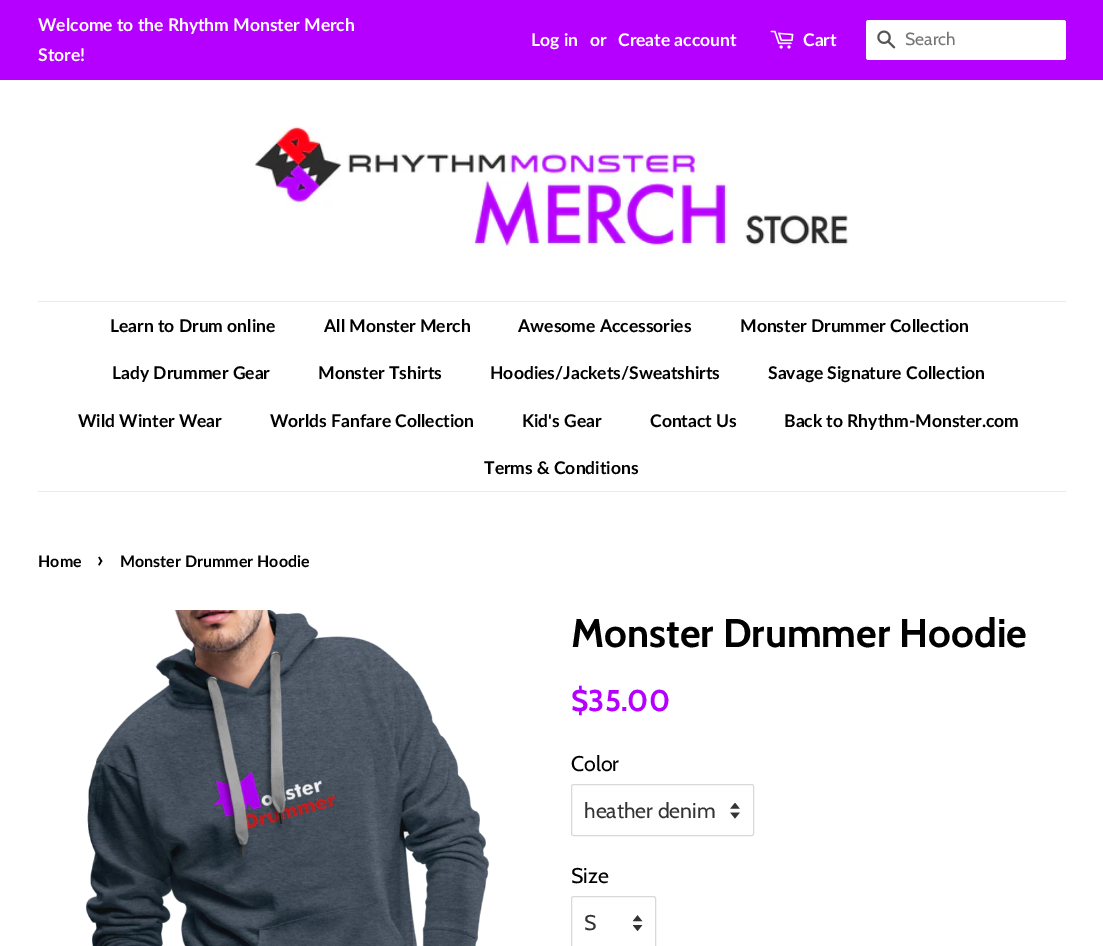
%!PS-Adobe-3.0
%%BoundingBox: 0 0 1103 946
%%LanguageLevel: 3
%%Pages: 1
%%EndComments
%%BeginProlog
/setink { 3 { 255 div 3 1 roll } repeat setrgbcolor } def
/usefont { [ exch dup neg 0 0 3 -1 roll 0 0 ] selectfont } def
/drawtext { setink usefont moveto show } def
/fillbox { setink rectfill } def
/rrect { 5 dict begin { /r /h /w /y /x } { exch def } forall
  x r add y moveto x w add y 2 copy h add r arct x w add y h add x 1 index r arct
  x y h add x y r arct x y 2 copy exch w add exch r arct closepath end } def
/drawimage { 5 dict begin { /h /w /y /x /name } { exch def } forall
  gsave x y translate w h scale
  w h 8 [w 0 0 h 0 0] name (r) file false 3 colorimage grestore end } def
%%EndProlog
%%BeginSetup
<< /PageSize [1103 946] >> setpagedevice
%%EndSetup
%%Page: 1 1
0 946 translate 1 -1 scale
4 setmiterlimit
0 0 1103 946 255 255 255 fillbox
0 0 1103 80 182 0 255 fillbox
(Welcome to the Rhythm Monster Merch) 38 31 /Lato-Bold 17.5 255 255 255 drawtext
(Store!) 38 61 /Lato-Bold 17.5 255 255 255 drawtext
(Log in) 531 46 /Lato-Bold 17.5 255 255 255 drawtext
(or) 590 46 /Lato-Bold 17.5 255 255 255 drawtext
(Create account) 618 46 /Lato-Bold 17.5 255 255 255 drawtext
(assets/img1.rgb) 770 30 24 19 drawimage
(Cart) 803 46 /Lato-Bold 17.5 255 255 255 drawtext
866 20 200 40 2.5 rrect fill
(assets/img2.rgb) 877 30 19 19 drawimage
(Search) 905 45 /Cabin-Regular 17.5 117 117 117 drawtext
(assets/img3.rgb) 255 126 594 121 drawimage
38 301 1028 1 235 235 235 fillbox
38 491 1028 1 235 235 235 fillbox
(Learn to Drum online) 110 332 /Lato-Bold 17.5 0 0 0 drawtext
(All Monster Merch) 324 332 /Lato-Bold 17.5 0 0 0 drawtext
(Awesome Accessories) 518 332 /Lato-Bold 17.5 0 0 0 drawtext
(Monster Drummer Collection) 740 332 /Lato-Bold 17.5 0 0 0 drawtext
(Lady Drummer Gear) 112 379 /Lato-Bold 17.5 0 0 0 drawtext
(Monster Tshirts) 318 379 /Lato-Bold 17.5 0 0 0 drawtext
(Hoodies/Jackets/Sweatshirts) 490 379 /Lato-Bold 17.5 0 0 0 drawtext
(Savage Signature Collection) 768 379 /Lato-Bold 17.5 0 0 0 drawtext
(Wild Winter Wear) 78 427 /Lato-Bold 17.5 0 0 0 drawtext
(Worlds Fanfare Collection) 270 427 /Lato-Bold 17.5 0 0 0 drawtext
(Kid's Gear) 522 427 /Lato-Bold 17.5 0 0 0 drawtext
(Contact Us) 650 427 /Lato-Bold 17.5 0 0 0 drawtext
(Back to Rhythm-Monster.com) 784 427 /Lato-Bold 17.5 0 0 0 drawtext
(Terms & Conditions) 484 474 /Lato-Bold 17.5 0 0 0 drawtext
(Home) 38 567 /Lato-Bold 16 0 0 0 drawtext
(›) 97 567 /Lato-Bold 22 0 0 0 drawtext
(Monster Drummer Hoodie) 120 567 /Lato-Bold 16 0 0 0 drawtext
(assets/img4.rgb) 85 610 405 336 drawimage
(Monster Drummer Hoodie) 571 647 /Cabin-Bold 40 0 0 0 drawtext
($35.00) 571 711 /Cabin-Bold 30 182 0 255 drawtext
(Color) 571 771 /Cabin-Regular 21.25 0 0 0 drawtext
(assets/img5.rgb) 730 803 10 16 drawimage
217 217 217 setink
571.5 784.5 182 51 2 rrect stroke
(heather denim) 584 818 /Cabin-Regular 21.25 51 51 51 drawtext
(Size) 571 883 /Cabin-Regular 21.25 0 0 0 drawtext
(assets/img6.rgb) 633 915 10 16 drawimage
217 217 217 setink
571.5 896.5 84 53 2 rrect stroke
(S) 584 930 /Cabin-Regular 21.25 51 51 51 drawtext
showpage
%%EOF
